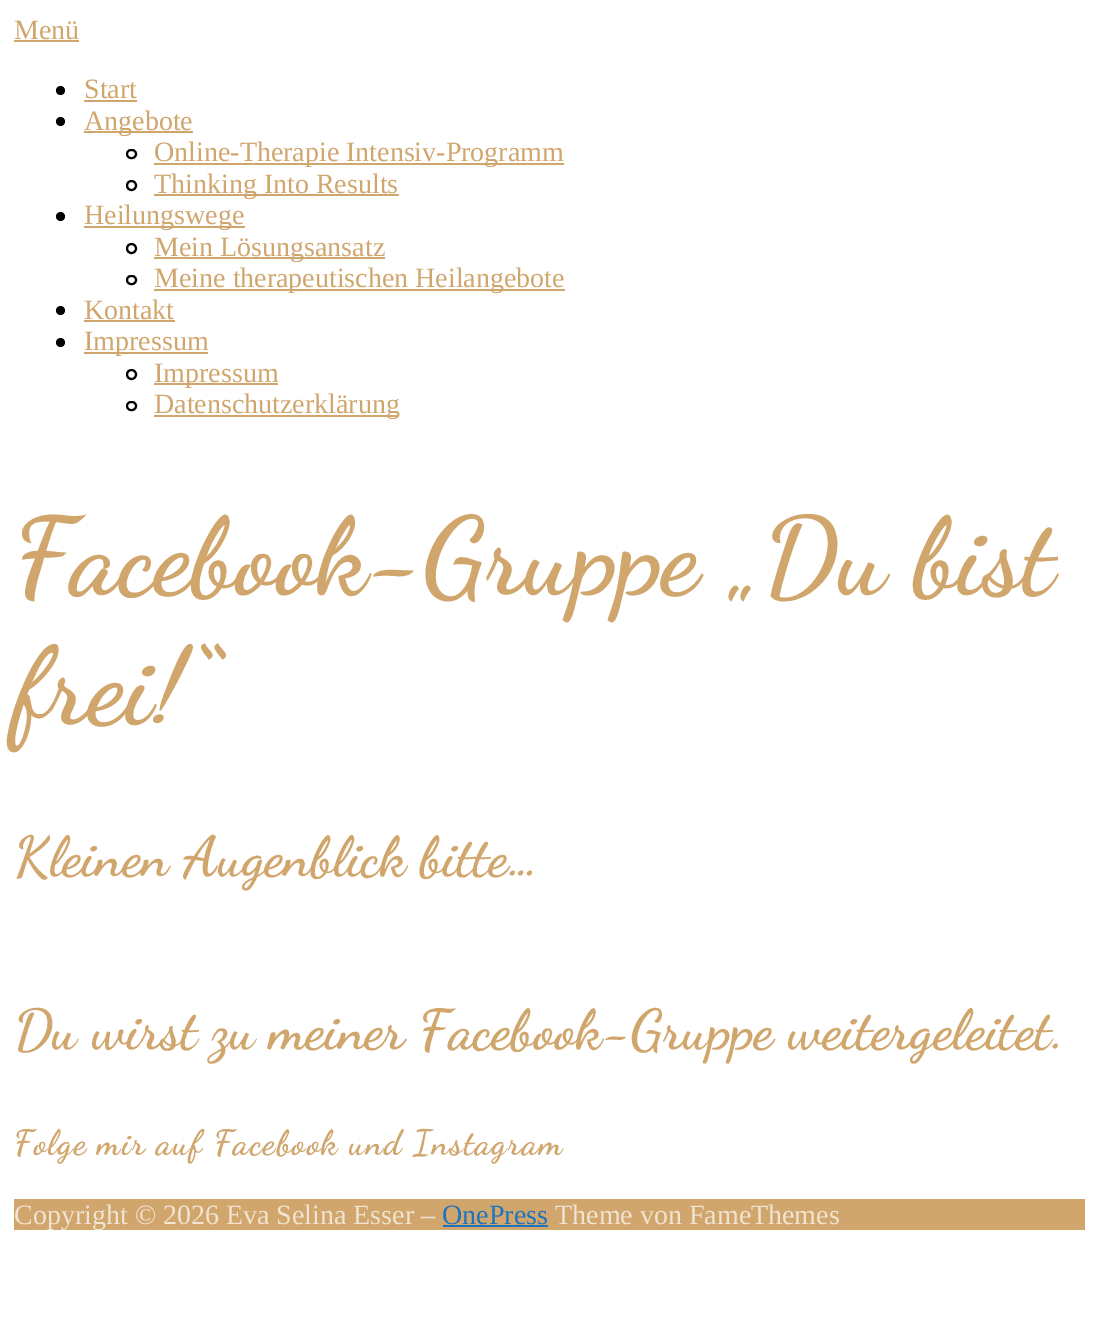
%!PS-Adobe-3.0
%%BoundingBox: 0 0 1098 1328
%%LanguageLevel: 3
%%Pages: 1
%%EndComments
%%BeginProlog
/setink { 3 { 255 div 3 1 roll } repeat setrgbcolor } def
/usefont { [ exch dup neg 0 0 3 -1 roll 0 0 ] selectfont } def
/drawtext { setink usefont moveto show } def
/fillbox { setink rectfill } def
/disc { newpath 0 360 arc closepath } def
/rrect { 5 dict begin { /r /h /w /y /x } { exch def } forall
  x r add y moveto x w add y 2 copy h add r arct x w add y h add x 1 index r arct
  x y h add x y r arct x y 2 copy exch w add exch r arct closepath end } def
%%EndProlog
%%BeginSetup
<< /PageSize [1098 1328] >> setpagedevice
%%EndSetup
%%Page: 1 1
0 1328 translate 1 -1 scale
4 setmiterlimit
0 0 1098 1328 255 255 255 fillbox
(Menü) 14 39 /LiberationSerif-Regular 28 208 166 108 drawtext
14 40 65 2 208 166 108 fillbox
0 0 0 setink
60.5 90.5 4.5 disc fill
(Start) 84 98 /LiberationSerif-Regular 28 208 166 108 drawtext
84 100 53 2 208 166 108 fillbox
0 0 0 setink
60.5 121.5 4.5 disc fill
84 131 109 2 208 166 108 fillbox
(Angebote) 84 130 /LiberationSerif-Regular 28 208 166 108 drawtext
0 0 0 setink
2 setlinewidth
127 150 9 8 4 rrect stroke
154 163 410 2 208 166 108 fillbox
(Online-Therapie Intensiv-Programm) 154 161 /LiberationSerif-Regular 28 208 166 108 drawtext
0 0 0 setink
131.5 185.5 4.5 disc stroke
154 194 245 2 208 166 108 fillbox
(Thinking Into Results) 154 193 /LiberationSerif-Regular 28 208 166 108 drawtext
0 0 0 setink
60.5 216.5 4.5 disc fill
84 226 161 2 208 166 108 fillbox
(Heilungswege) 84 224 /LiberationSerif-Regular 28 208 166 108 drawtext
0 0 0 setink
131.5 248.5 4.5 disc stroke
154 257 231 2 208 166 108 fillbox
(Mein Lösungsansatz) 154 256 /LiberationSerif-Regular 28 208 166 108 drawtext
0 0 0 setink
127 276 9 8 4 rrect stroke
154 289 411 2 208 166 108 fillbox
(Meine therapeutischen Heilangebote) 154 287 /LiberationSerif-Regular 28 208 166 108 drawtext
0 0 0 setink
60.5 310.5 4.5 disc fill
(Kontakt) 84 319 /LiberationSerif-Regular 28 208 166 108 drawtext
84 320 91 2 208 166 108 fillbox
0 0 0 setink
60.5 342.5 4.5 disc fill
84 352 124 2 208 166 108 fillbox
(Impressum) 84 350 /LiberationSerif-Regular 28 208 166 108 drawtext
0 0 0 setink
131.5 374.5 4.5 disc stroke
154 383 124 2 208 166 108 fillbox
(Impressum) 154 382 /LiberationSerif-Regular 28 208 166 108 drawtext
0 0 0 setink
127 402 9 8 4 rrect stroke
154 415 245 2 208 166 108 fillbox
(Datenschutzerklärung) 154 413 /LiberationSerif-Regular 28 208 166 108 drawtext
(Facebook-Gruppe „Du bist) 14 592 /DancingScript-Bold 108.5 208 166 108 drawtext
(frei!“) 14 722 /DancingScript-Bold 108.5 208 166 108 drawtext
(Kleinen Augenblick bitte…) 14 875 /DancingScript-Bold 56 208 166 108 drawtext
(Du wirst zu meiner Facebook-Gruppe weitergeleitet.) 14 1048 /DancingScript-Bold 56 208 166 108 drawtext
/DancingScript-Bold 35 usefont
14 1154 moveto 1.4 0 (Folge mir auf Facebook und Instagram) ashow
14 1199 1071 31 208 166 108 fillbox
(Copyright © 2026 Eva Selina Esser –) 14 1224 /LiberationSerif-Regular 28 241 228 211 drawtext
(OnePress) 442 1224 /LiberationSerif-Regular 28 30 115 190 drawtext
443 1225 105 2 30 115 190 fillbox
(Theme von FameThemes) 555 1224 /LiberationSerif-Regular 28 241 228 211 drawtext
showpage
%%EOF
